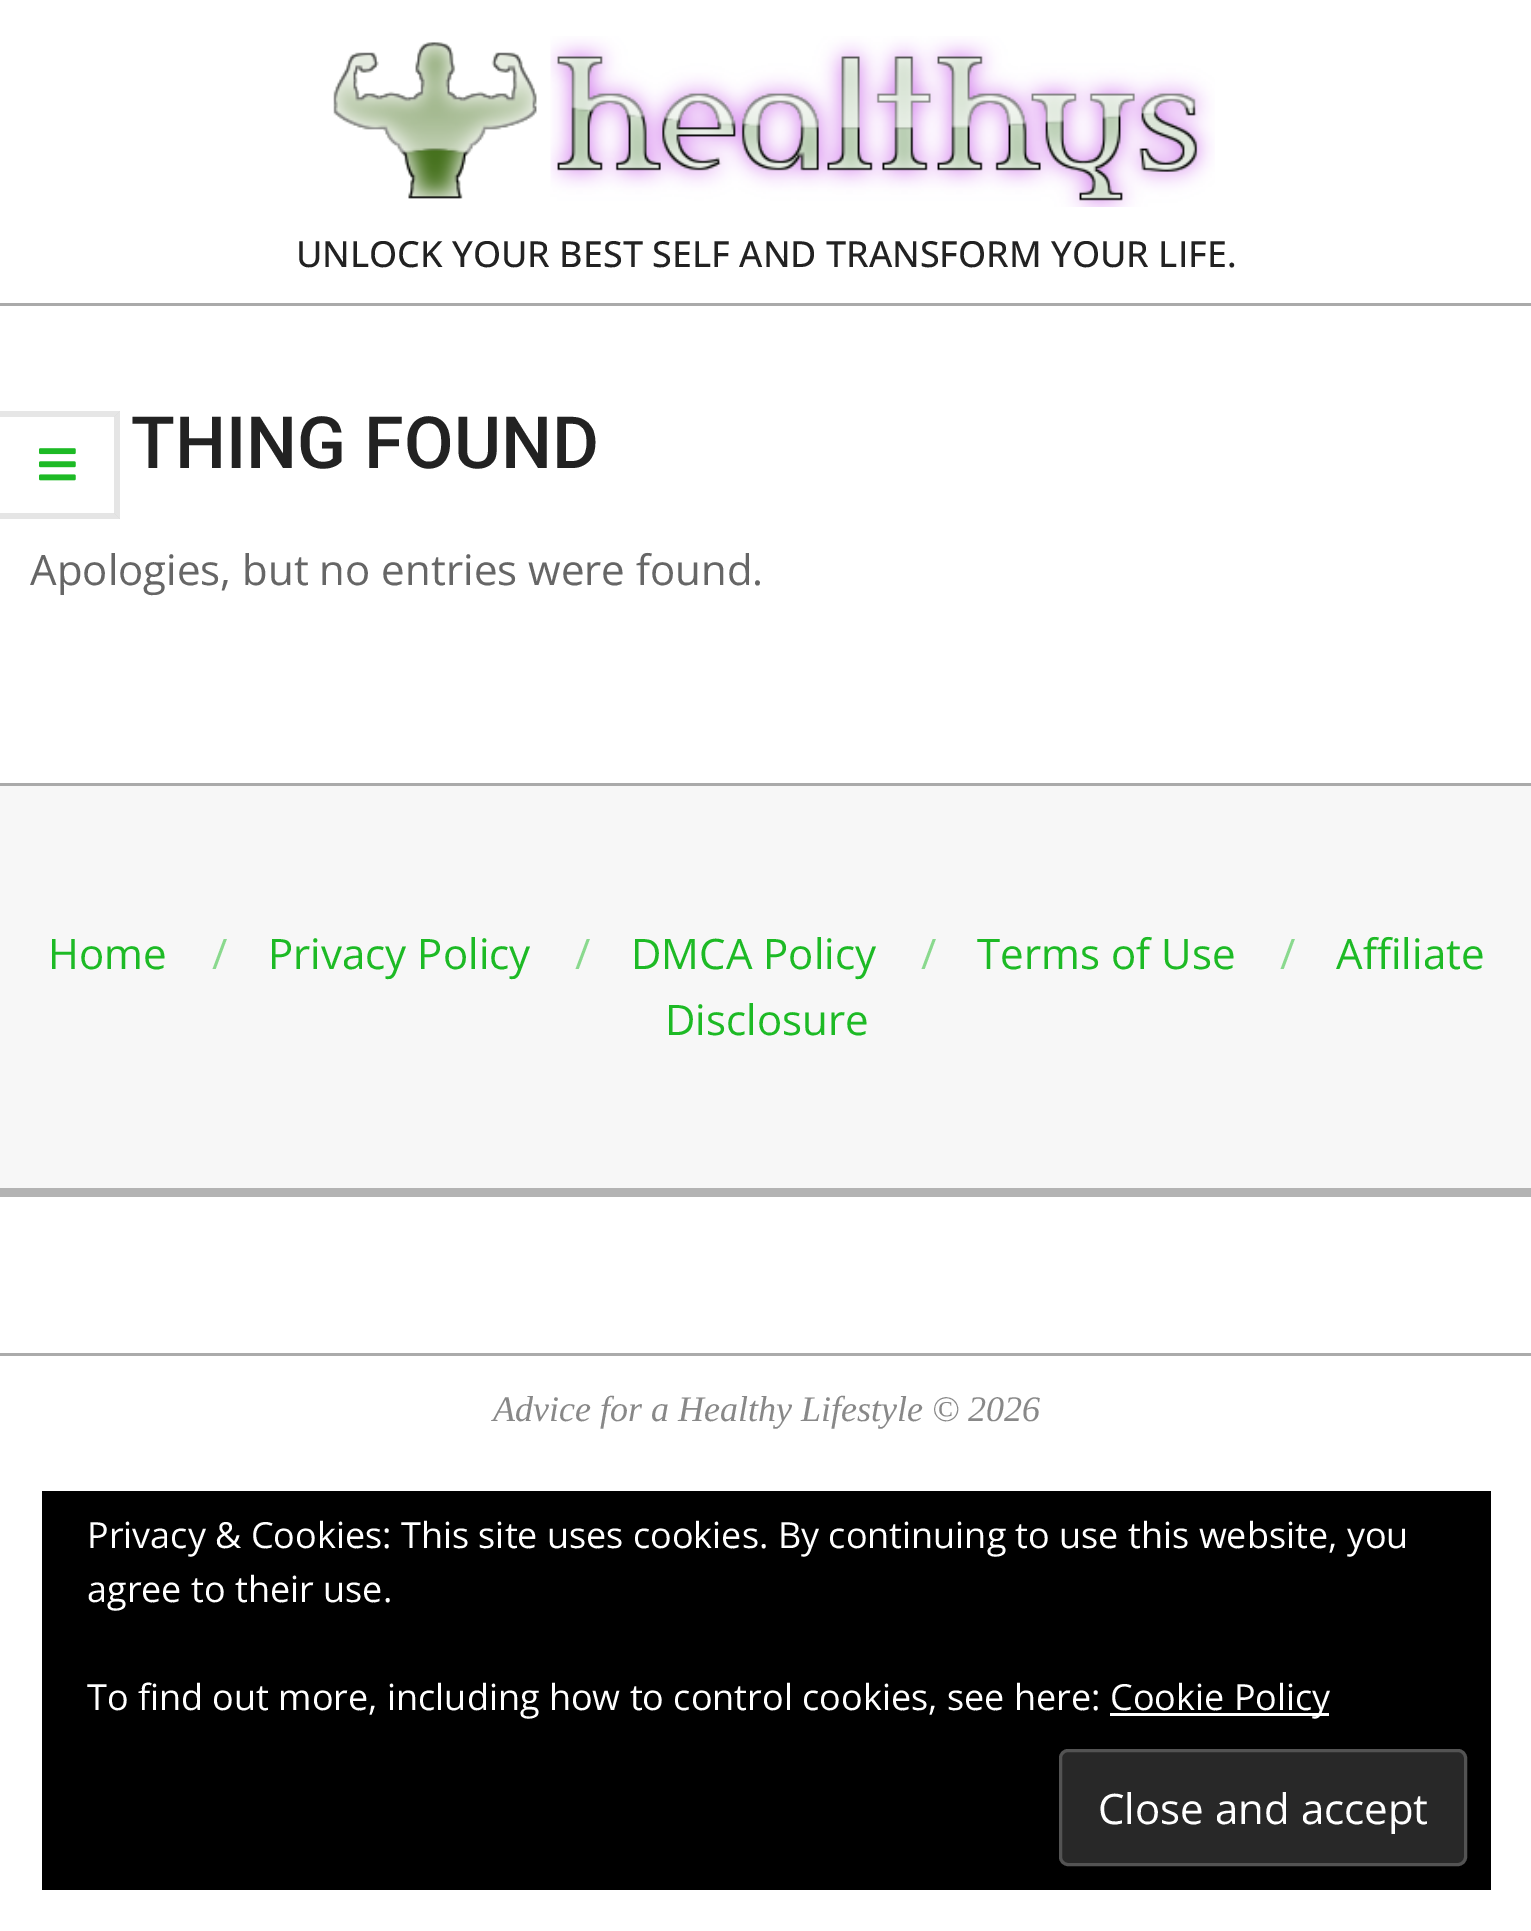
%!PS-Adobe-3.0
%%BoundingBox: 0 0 1531 1931
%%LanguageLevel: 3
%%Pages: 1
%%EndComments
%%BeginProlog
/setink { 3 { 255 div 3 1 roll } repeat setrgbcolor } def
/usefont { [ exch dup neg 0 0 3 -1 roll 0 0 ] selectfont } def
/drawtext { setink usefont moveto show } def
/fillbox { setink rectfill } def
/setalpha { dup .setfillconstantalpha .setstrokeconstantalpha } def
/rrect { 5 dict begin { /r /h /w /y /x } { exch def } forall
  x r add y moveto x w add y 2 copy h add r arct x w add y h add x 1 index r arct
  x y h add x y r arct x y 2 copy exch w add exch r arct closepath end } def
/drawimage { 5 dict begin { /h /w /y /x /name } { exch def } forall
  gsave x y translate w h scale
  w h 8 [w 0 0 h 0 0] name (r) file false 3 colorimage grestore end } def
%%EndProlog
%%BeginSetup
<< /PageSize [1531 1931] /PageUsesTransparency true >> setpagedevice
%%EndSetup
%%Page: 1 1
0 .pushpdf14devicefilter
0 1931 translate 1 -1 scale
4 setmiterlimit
0 0 1531 1931 255 255 255 fillbox
0 303 1531 3 170 170 170 fillbox
(assets/img1.rgb) 333 36 882 171 drawimage
(UNLOCK YOUR BEST SELF AND TRANSFORM YOUR LIFE.) 296 267 /OpenSans-Medium 36 34 34 34 drawtext
230 230 230 setink
0 411 moveto 120 411 lineto 114 417 lineto 0 417 lineto closepath fill
0.1 setalpha
0 0 0 setink
120 411 moveto 120 519 lineto 114 513 lineto 114 417 lineto closepath fill
120 519 moveto 0 519 lineto 0 513 lineto 114 513 lineto closepath fill
1 setalpha
(assets/img2.rgb) 39 448 37 33 drawimage
(THING FOUND) 131 468 /Roboto-Medium 72 34 34 34 drawtext
(Apologies, but no entries were found.) 30 585 /OpenSans-Regular 42 102 102 102 drawtext
0 786 1531 402 247 247 247 fillbox
0 783 1531 3 170 170 170 fillbox
(Home) 48 969 /OpenSans-Regular 42 29 186 37 drawtext
(/) 212 969 /OpenSans-Regular 42 138 217 142 drawtext
(Privacy Policy) 268 969 /OpenSans-Regular 42 29 186 37 drawtext
(/) 575 969 /OpenSans-Regular 42 138 217 142 drawtext
(DMCA Policy) 631 969 /OpenSans-Regular 42 29 186 37 drawtext
(/) 921 969 /OpenSans-Regular 42 138 217 142 drawtext
(Terms of Use) 977 969 /OpenSans-Regular 42 29 186 37 drawtext
(/) 1280 969 /OpenSans-Regular 42 138 217 142 drawtext
(Affiliate) 1336 969 /OpenSans-Regular 42 29 186 37 drawtext
(Disclosure) 665 1035 /OpenSans-Regular 42 29 186 37 drawtext
0 1188 1531 9 179 179 179 fillbox
0 1353 1531 3 171 171 171 fillbox
(Advice for a Healthy Lifestyle © 2026) 493 1421 /LiberationSerif-Italic 36 136 136 136 drawtext
42 1491 1449 399 0 0 0 fillbox
(Privacy & Cookies: This site uses cookies. By continuing to use this website, you) 87 1548 /OpenSans-Regular 36 255 255 255 drawtext
(agree to their use.) 87 1602 /OpenSans-Regular 36 255 255 255 drawtext
(To find out more, including how to control cookies, see here:) 87 1710 /OpenSans-Regular 36 255 255 255 drawtext
1110 1713 219 3 255 255 255 fillbox
(Cookie Policy) 1110 1710 /OpenSans-Regular 36 255 255 255 drawtext
40 40 40 setink
1060.5 1750.5 405 114 7.5 rrect gsave fill grestore
83 83 83 setink
3 setlinewidth
stroke
(Close and accept) 1098 1824 /OpenSans-Regular 42 255 255 255 drawtext
.poppdf14devicefilter showpage
%%EOF
